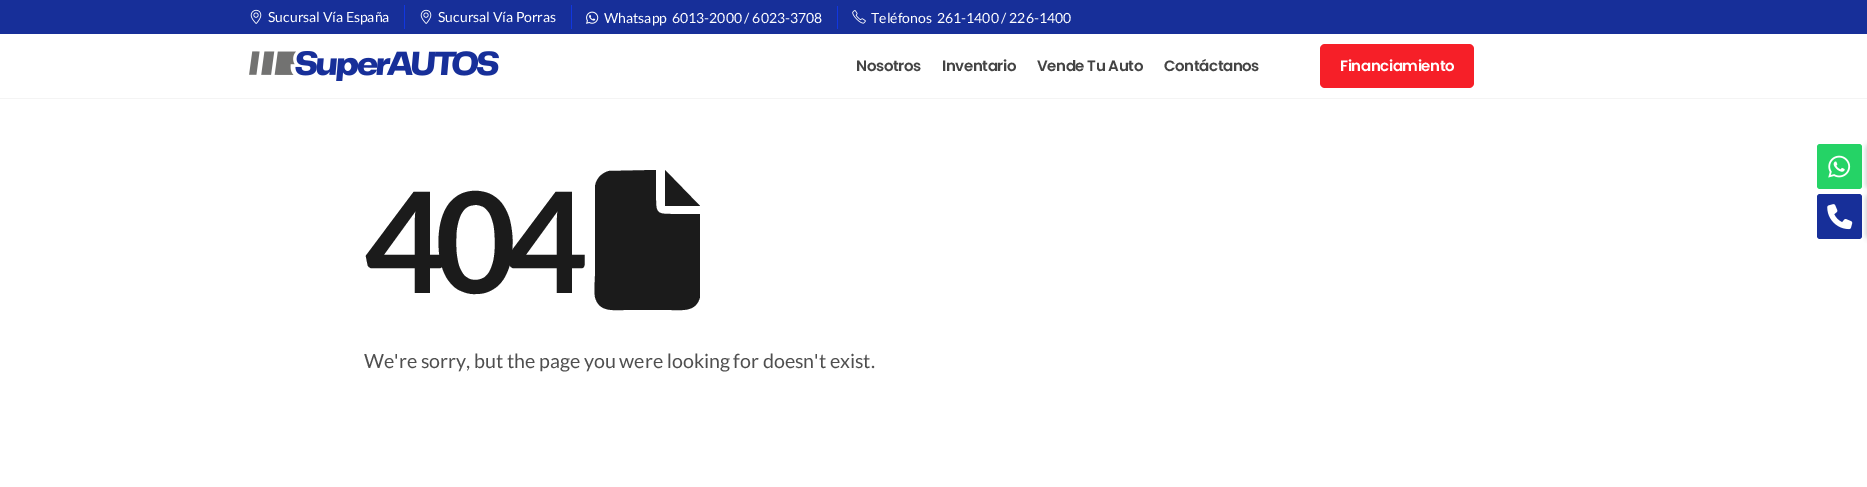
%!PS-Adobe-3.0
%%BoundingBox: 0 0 1867 487
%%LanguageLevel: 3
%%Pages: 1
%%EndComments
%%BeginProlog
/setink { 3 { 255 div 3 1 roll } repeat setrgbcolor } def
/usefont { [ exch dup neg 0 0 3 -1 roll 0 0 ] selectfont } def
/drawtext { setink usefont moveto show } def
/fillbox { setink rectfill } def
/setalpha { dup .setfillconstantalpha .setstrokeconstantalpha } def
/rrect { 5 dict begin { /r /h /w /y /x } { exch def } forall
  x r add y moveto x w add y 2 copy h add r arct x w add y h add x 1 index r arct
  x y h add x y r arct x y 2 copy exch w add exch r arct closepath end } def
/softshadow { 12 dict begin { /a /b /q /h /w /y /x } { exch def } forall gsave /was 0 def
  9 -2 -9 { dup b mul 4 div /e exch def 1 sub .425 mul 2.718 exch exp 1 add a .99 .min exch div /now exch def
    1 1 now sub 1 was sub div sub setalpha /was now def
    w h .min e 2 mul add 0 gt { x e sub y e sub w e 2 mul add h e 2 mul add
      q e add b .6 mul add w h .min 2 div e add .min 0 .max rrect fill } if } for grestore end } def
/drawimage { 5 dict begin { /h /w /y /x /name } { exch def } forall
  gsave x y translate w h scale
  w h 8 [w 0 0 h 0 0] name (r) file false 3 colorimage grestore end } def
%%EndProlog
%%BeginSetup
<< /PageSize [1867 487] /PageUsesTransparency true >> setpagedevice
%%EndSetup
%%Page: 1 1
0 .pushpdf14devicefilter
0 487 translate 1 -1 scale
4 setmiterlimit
0 0 1867 487 255 255 255 fillbox
0 98 1867 1 244 244 244 fillbox
0 0 1867 34 23 47 153 fillbox
404 5 1 24 17 55 224 fillbox
(assets/img1.rgb) 250 9 12 15 drawimage
(Sucursal Vía España) 268 22 /Lato-Regular 14 255 255 255 drawtext
571 5 1 24 17 55 224 fillbox
(assets/img1.rgb) 420 9 12 15 drawimage
(Sucursal Vía Porras) 438 22 /Lato-Regular 14 255 255 255 drawtext
837 6 1 23 17 55 224 fillbox
(assets/img2.rgb) 586 11 13 13 drawimage
(Whatsapp) 604 23 /Lato-Regular 14 255 255 255 drawtext
(6013-2000 / 6023-3708) 672 23 /Lato-Regular 14 255 255 255 drawtext
(assets/img3.rgb) 852 10 14 14 drawimage
(Teléfonos) 871 23 /Lato-Regular 14 255 255 255 drawtext
(261-1400 / 226-1400) 937 23 /Lato-Regular 14 255 255 255 drawtext
(assets/img4.rgb) 249 51 250 30 drawimage
/Poppins-SemiBold 15 usefont
68 68 68 setink
856 71 moveto -0.4 0 (Nosotros) ashow
942 71 moveto -0.4 0 (Inventario) ashow
1037 71 moveto -0.4 0 (Vende Tu Auto) ashow
1164 71 moveto -0.4 0 (Contáctanos) ashow
246 31 40 setink
1320 44 154 44 5 rrect fill
255 255 255 setink
1340 71 moveto -0.4 0 (Financiamiento) ashow
/Lato-Bold 140 usefont
27 27 27 setink
364 293 moveto -10 0 (404) ashow
595 188 moveto 595 180 601 173 609 171 curveto 656 170 lineto 656 200 lineto 656 213 658 214 671 214 curveto 700 214 lineto 700 297 lineto 696 312 683 310 671 310 curveto 624 310 lineto 612 310 599 312 595 297 curveto 594 290 595 280 595 276 curveto closepath 700 206 moveto 665 206 lineto 665 170 lineto closepath fill
(We're sorry, but the page you were looking for doesn't exist.) 364 368 /Lato-Regular 19.6 79 79 79 drawtext
37 211 102 setink
1817 144 45 45 3 rrect fill
0 0 0 setink
1866 143 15 47 6 2.5 0.2 softshadow
(assets/img5.rgb) 1828 155 23 23 drawimage
23 47 153 setink
1817 194 45 45 3 rrect fill
0 0 0 setink
1866 193 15 47 6 2.5 0.2 softshadow
(assets/img6.rgb) 1827 204 26 26 drawimage
.poppdf14devicefilter showpage
%%EOF
